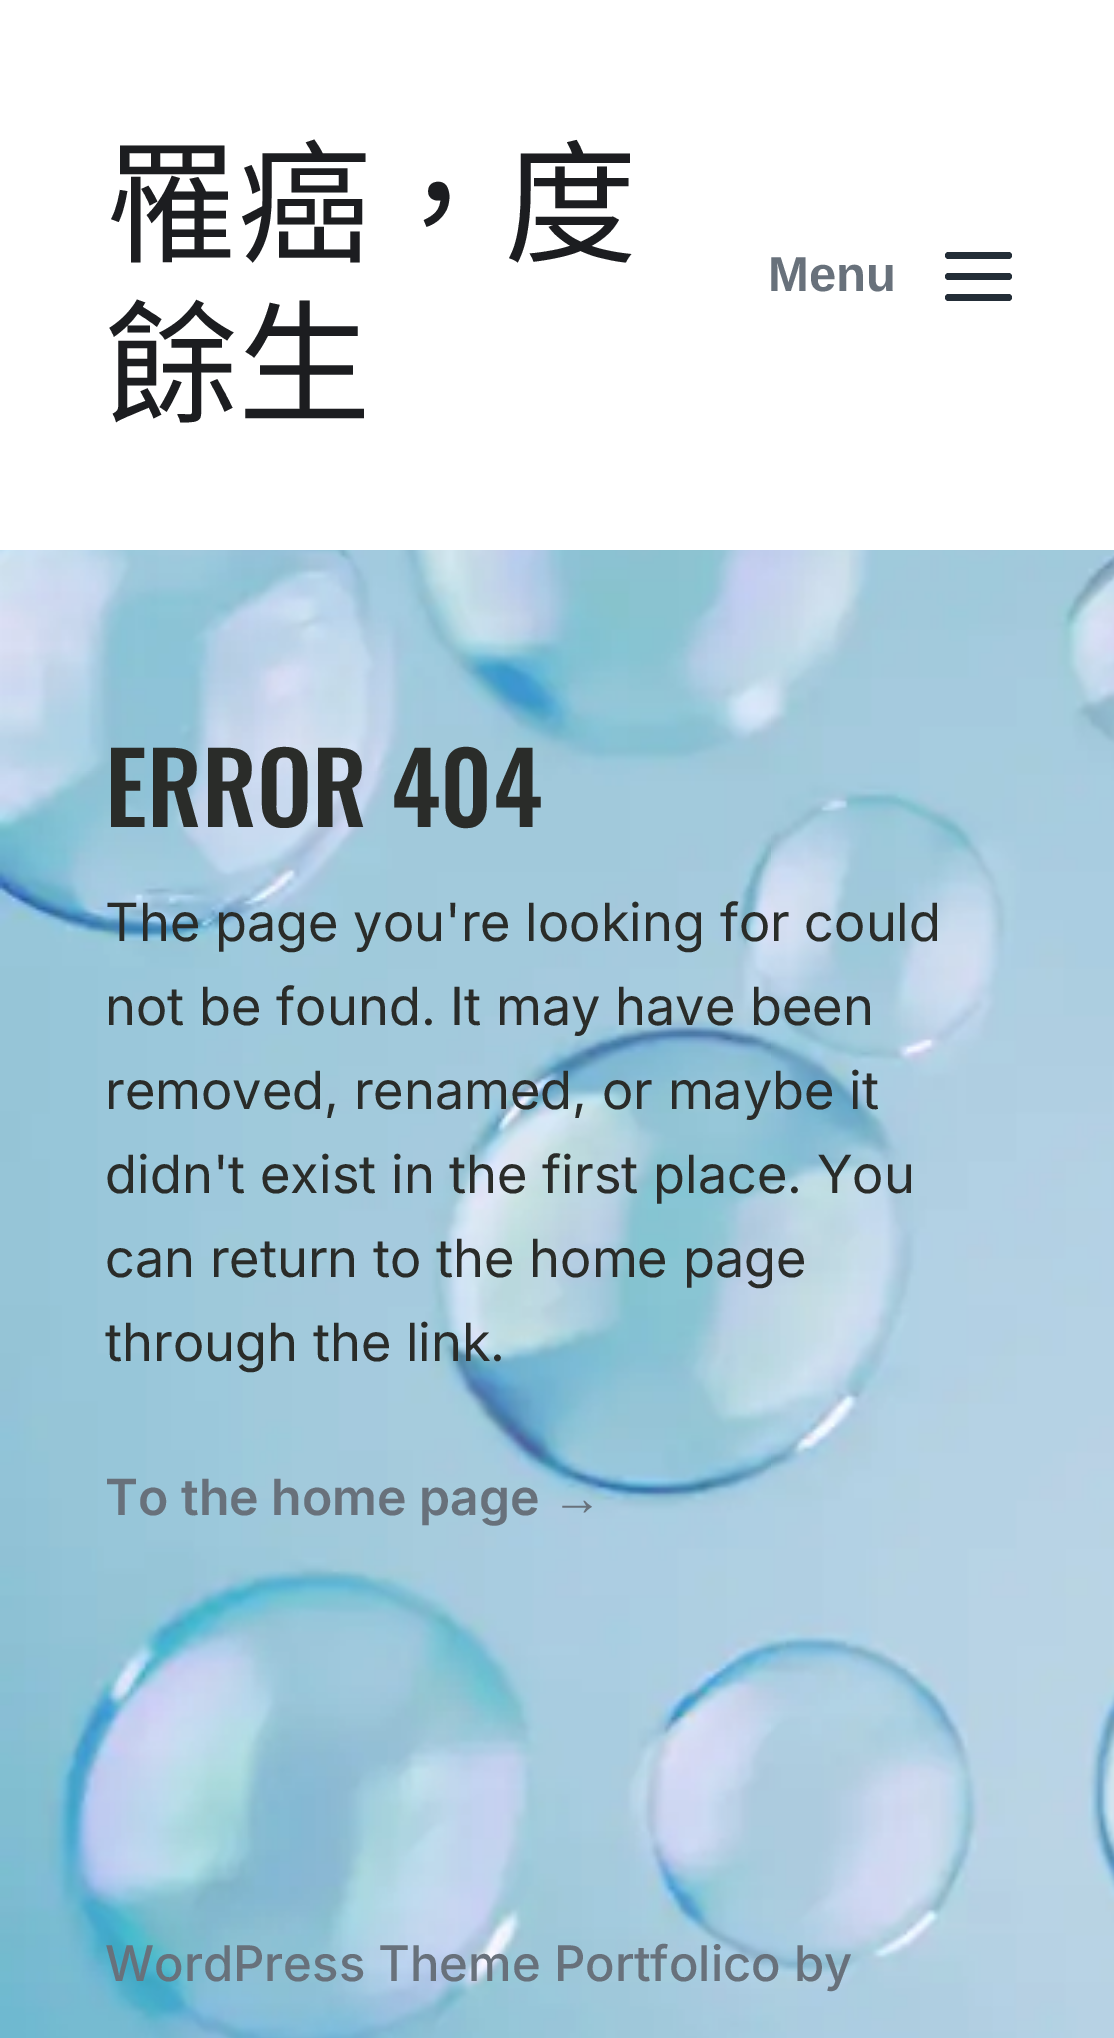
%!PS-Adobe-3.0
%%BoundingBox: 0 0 1114 2038
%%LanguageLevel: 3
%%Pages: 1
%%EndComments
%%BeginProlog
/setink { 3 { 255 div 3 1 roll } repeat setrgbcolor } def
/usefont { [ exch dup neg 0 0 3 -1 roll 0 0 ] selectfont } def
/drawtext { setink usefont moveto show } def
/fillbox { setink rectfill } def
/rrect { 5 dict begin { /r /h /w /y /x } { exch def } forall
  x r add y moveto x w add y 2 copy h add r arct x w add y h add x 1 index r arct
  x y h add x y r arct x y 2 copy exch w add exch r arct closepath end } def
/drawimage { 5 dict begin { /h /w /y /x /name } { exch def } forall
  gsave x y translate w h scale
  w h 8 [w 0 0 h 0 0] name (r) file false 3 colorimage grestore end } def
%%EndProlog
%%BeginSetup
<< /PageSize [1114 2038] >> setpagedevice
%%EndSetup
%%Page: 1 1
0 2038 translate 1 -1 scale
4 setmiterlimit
0 0 1114 2038 255 255 255 fillbox
(assets/img1.rgb) 0 550 1114 1488 drawimage
(罹癌，度) 105 252 /NotoSansCJKTC-Regular 133 28 29 32 drawtext
(餘生) 105 412 /NotoSansCJKTC-Regular 133 28 29 32 drawtext
(Menu) 768 291 /LiberationSans-Bold 49 104 113 123 drawtext
35 45 55 setink
945 252 67 7 3.5 rrect fill
945 273 67 7 3.5 rrect fill
945 294 67 7 3.5 rrect fill
(ERROR 404) 105 827 /Oswald-Medium 98 42 44 41 drawtext
(The page you're looking for could) 105 941 /Inter-Regular 52.5 42 44 41 drawtext
(not be found. It may have been) 105 1025 /Inter-Regular 52.5 42 44 41 drawtext
(removed, renamed, or maybe it) 105 1109 /Inter-Regular 52.5 42 44 41 drawtext
(didn't exist in the first place. You) 105 1193 /Inter-Regular 52.5 42 44 41 drawtext
(can return to the home page) 105 1277 /Inter-Regular 52.5 42 44 41 drawtext
(through the link.) 105 1361 /Inter-Regular 52.5 42 44 41 drawtext
(To the home page) 105 1515 /Inter-SemiBold 49.9 104 113 123 drawtext
(→) 552 1515 /LiberationSans-Bold 49.9 104 113 123 drawtext
(WordPress Theme Portfolico by) 105 1981 /Inter-Medium 49 104 113 123 drawtext
showpage
%%EOF
